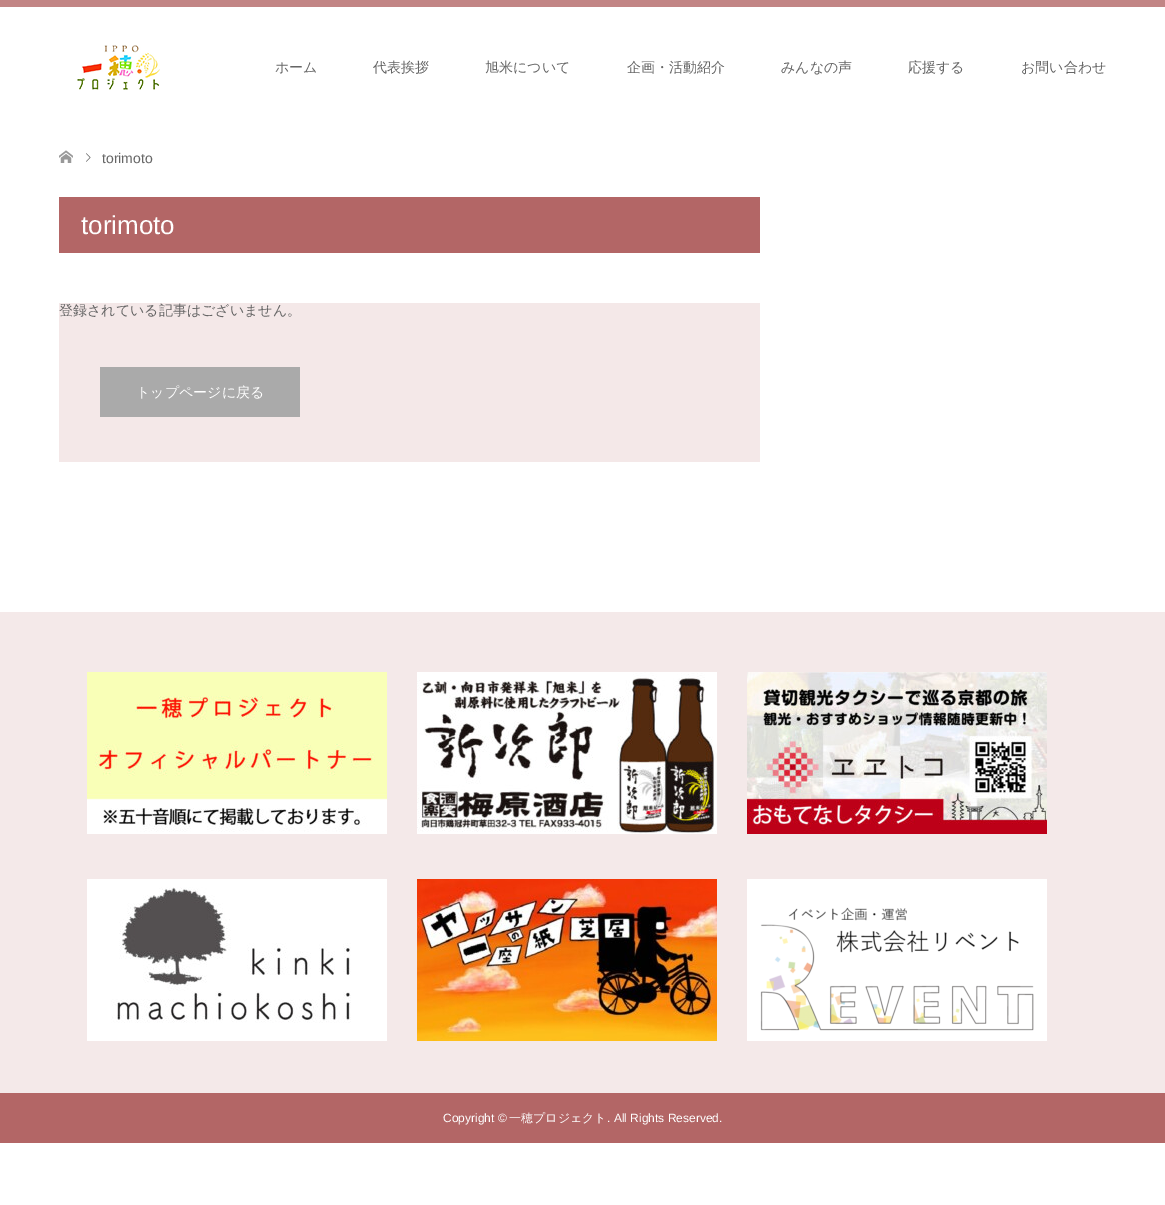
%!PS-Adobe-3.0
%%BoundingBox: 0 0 1165 1205
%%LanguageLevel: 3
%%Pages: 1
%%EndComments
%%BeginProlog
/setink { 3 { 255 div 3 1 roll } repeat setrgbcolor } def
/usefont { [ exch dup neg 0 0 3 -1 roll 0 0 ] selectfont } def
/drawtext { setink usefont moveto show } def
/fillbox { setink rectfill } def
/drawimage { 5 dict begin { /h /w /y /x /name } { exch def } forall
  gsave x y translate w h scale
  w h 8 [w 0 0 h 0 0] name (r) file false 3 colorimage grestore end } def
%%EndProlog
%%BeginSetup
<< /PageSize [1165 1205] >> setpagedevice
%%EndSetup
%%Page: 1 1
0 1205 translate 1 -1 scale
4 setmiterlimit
0 0 1165 1205 255 255 255 fillbox
0 0 1165 7 194 133 133 fillbox
(assets/img1.rgb) 77 45 83 45 drawimage
(ホーム) 275 72 /WenQuanYiZenHei-Medium 14 102 102 102 drawtext
(代表挨拶) 373 72 /WenQuanYiZenHei-Medium 14 102 102 102 drawtext
(旭米について) 485 72 /WenQuanYiZenHei-Medium 14 102 102 102 drawtext
(企画・活動紹介) 627 72 /WenQuanYiZenHei-Medium 14 102 102 102 drawtext
(みんなの声) 781 72 /WenQuanYiZenHei-Medium 14 102 102 102 drawtext
(応援する) 908 72 /WenQuanYiZenHei-Medium 14 102 102 102 drawtext
(お問い合わせ) 1021 72 /WenQuanYiZenHei-Medium 14 102 102 102 drawtext
(assets/img2.rgb) 59 150 14 13 drawimage
(assets/img3.rgb) 86 153 5 9 drawimage
(torimoto) 102 163 /LiberationSans-Regular 14 102 102 102 drawtext
59 197 701 56 179 102 102 fillbox
(torimoto) 81 234 /LiberationSans-Regular 26 255 255 255 drawtext
59 303 701 159 244 232 232 fillbox
(登録されている記事はございません。) 59 315 /WenQuanYiZenHei-Medium 14 102 102 102 drawtext
100 367 200 50 170 170 170 fillbox
(トップページに戻る) 136 397 /WenQuanYiZenHei-Medium 14 255 255 255 drawtext
0 612 1165 481 244 233 233 fillbox
(assets/img4.rgb) 87 672 300 162 drawimage
(assets/img5.rgb) 417 672 300 162 drawimage
(assets/img6.rgb) 747 672 300 162 drawimage
(assets/img7.rgb) 87 879 300 162 drawimage
(assets/img8.rgb) 417 879 300 162 drawimage
(assets/img9.rgb) 747 879 300 162 drawimage
0 1093 1165 50 179 102 102 fillbox
(Copyright ©) 443 1122 /LiberationSans-Regular 12 255 255 255 drawtext
(一穂プロジェクト) 509 1122 /WenQuanYiZenHei-Medium 12 255 255 255 drawtext
(. All Rights Reserved.) 607 1122 /LiberationSans-Regular 12 255 255 255 drawtext
showpage
%%EOF
